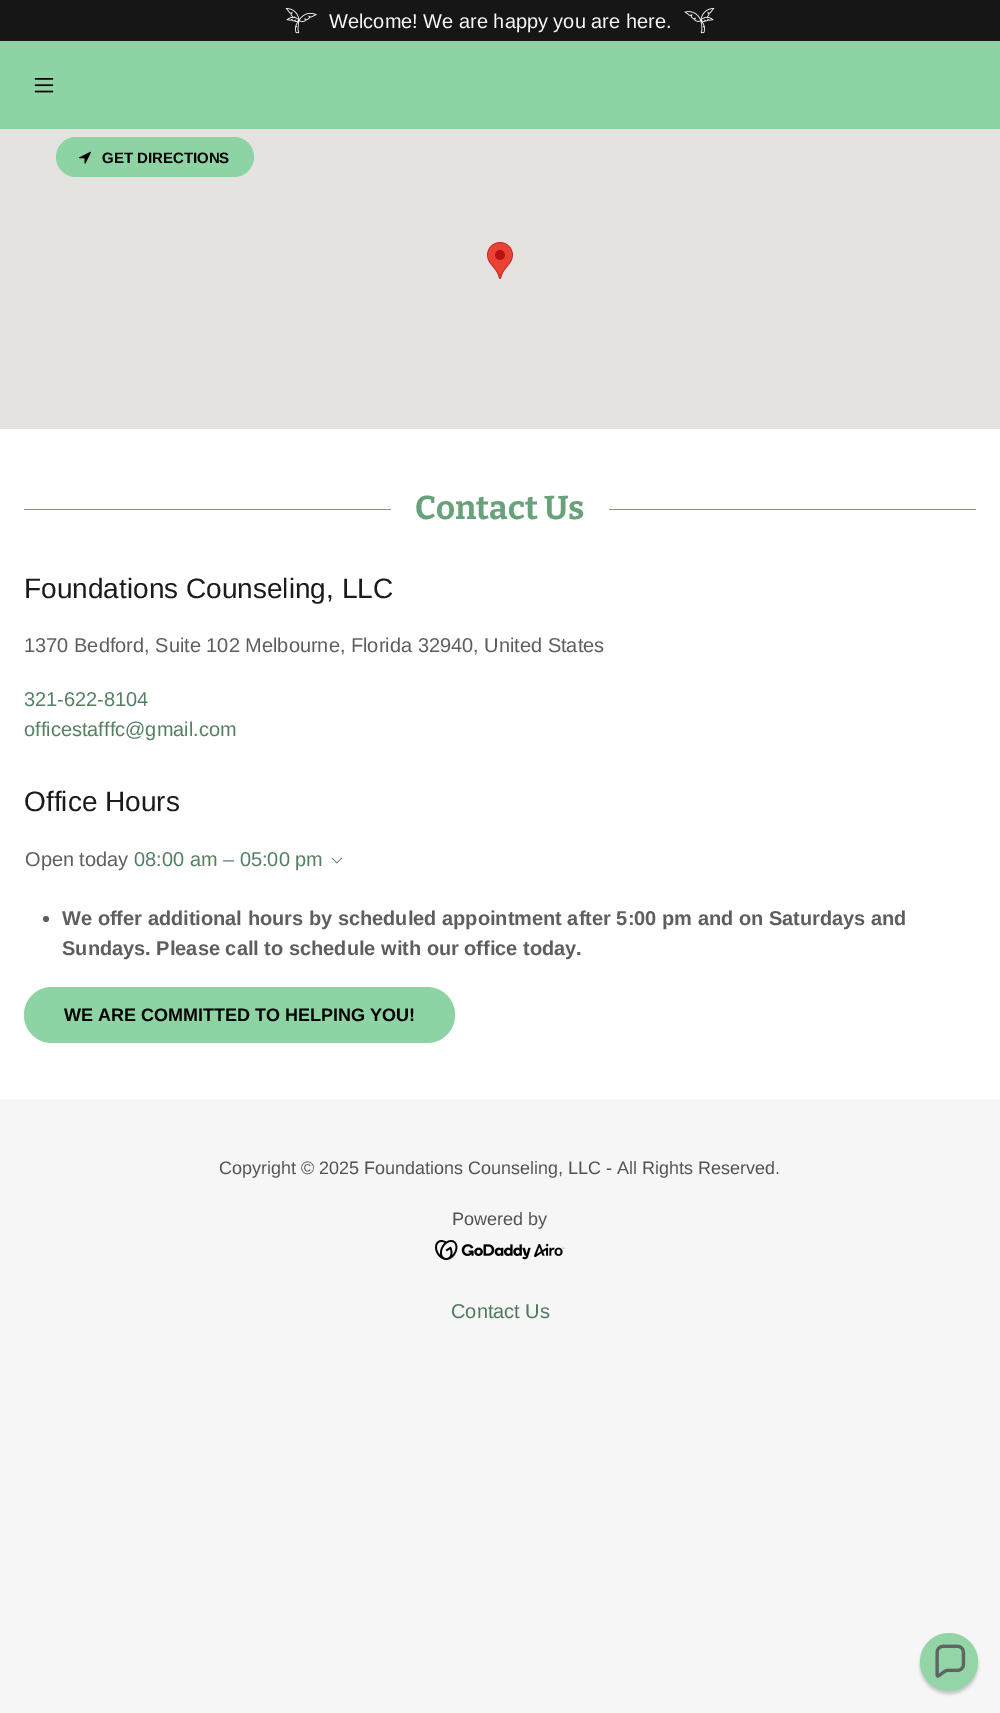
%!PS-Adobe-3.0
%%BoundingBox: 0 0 1000 1713
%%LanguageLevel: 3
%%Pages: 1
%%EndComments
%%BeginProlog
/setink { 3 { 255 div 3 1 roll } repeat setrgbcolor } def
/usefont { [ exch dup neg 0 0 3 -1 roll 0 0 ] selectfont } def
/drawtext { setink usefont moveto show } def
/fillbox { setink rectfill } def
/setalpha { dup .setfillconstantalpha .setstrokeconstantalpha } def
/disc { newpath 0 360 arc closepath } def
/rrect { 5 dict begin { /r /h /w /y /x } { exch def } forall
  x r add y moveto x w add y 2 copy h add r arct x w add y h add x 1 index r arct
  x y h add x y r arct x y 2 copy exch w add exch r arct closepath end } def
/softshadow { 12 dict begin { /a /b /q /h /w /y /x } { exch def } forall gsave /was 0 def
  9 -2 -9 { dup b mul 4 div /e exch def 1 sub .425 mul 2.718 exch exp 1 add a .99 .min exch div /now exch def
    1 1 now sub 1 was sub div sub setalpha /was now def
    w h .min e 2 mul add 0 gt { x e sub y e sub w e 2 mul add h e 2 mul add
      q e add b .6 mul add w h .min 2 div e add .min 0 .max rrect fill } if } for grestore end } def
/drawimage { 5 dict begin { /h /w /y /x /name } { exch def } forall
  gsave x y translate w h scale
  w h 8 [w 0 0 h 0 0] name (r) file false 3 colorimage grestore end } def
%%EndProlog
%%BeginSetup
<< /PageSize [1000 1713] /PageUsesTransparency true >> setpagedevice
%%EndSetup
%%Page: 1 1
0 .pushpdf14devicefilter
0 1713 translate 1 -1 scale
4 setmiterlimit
0 0 1000 1713 246 246 246 fillbox
0 41 1000 88 142 211 163 fillbox
0 0 1000 41 22 22 22 fillbox
(assets/img1.rgb) 285 7 32 27 drawimage
(Welcome! We are happy you are here.) 329 28 /LiberationSans-Regular 20 247 247 247 drawtext
(assets/img2.rgb) 684 7 31 27 drawimage
(assets/img3.rgb) 34 78 20 15 drawimage
0 429 1000 670 255 255 255 fillbox
0 129 1000 300 229 227 223 fillbox
(assets/img4.rgb) 487 242 26 37 drawimage
142 211 163 setink
56 137 198 40 20 rrect fill
(assets/img5.rgb) 79 151 12 13 drawimage
(GET DIRECTIONS) 102 163 /LiberationSans-Bold 15 0 0 0 drawtext
24 509 367 1 104 161 122 fillbox
(Contact Us) 415 519 /Bitter-Thin 33 104 161 122 drawtext
609 509 367 1 104 161 122 fillbox
(Foundations Counseling, LLC) 24 598 /LiberationSans-Regular 28 27 27 27 drawtext
(1370 Bedford, Suite 102 Melbourne, Florida 32940, United States) 24 652 /LiberationSans-Regular 20 94 94 94 drawtext
(321-622-8104) 24 706 /LiberationSans-Regular 20 85 128 98 drawtext
(officestafffc@gmail.com) 24 736 /LiberationSans-Regular 20 85 128 98 drawtext
(Office Hours) 24 811 /LiberationSans-Regular 28 27 27 27 drawtext
(Open today) 25 866 /LiberationSans-Regular 20 94 94 94 drawtext
(08:00 am – 05:00 pm) 134 866 /LiberationSans-Regular 20 85 128 98 drawtext
(assets/img6.rgb) 331 857 12 7 drawimage
94 94 94 setink
46 919 3 disc fill
(We offer additional hours by scheduled appointment after 5:00 pm and on Saturdays and) 62 925 /LiberationSans-Bold 20 94 94 94 drawtext
(Sundays. Please call to schedule with our office today.) 62 955 /LiberationSans-Bold 20 94 94 94 drawtext
142 211 163 setink
24 987 431 56 28 rrect fill
(WE ARE COMMITTED TO HELPING YOU!) 64 1021 /LiberationSans-Bold 18 0 0 0 drawtext
(Copyright © 2025 Foundations Counseling, LLC - All Rights Reserved.) 219 1174 /LiberationSans-Regular 18 82 82 82 drawtext
(Powered by) 452 1225 /LiberationSans-Regular 18 82 82 82 drawtext
(assets/img7.rgb) 435 1240 130 20 drawimage
(Contact Us) 451 1318 /LiberationSans-Regular 20 81 122 93 drawtext
12 12 12 setink
920 1636 58 58 29 1.5 0.2 softshadow
147 213 167 setink
949 1662 29 disc fill
(assets/img8.rgb) 935 1644 31 34 drawimage
.poppdf14devicefilter showpage
%%EOF
